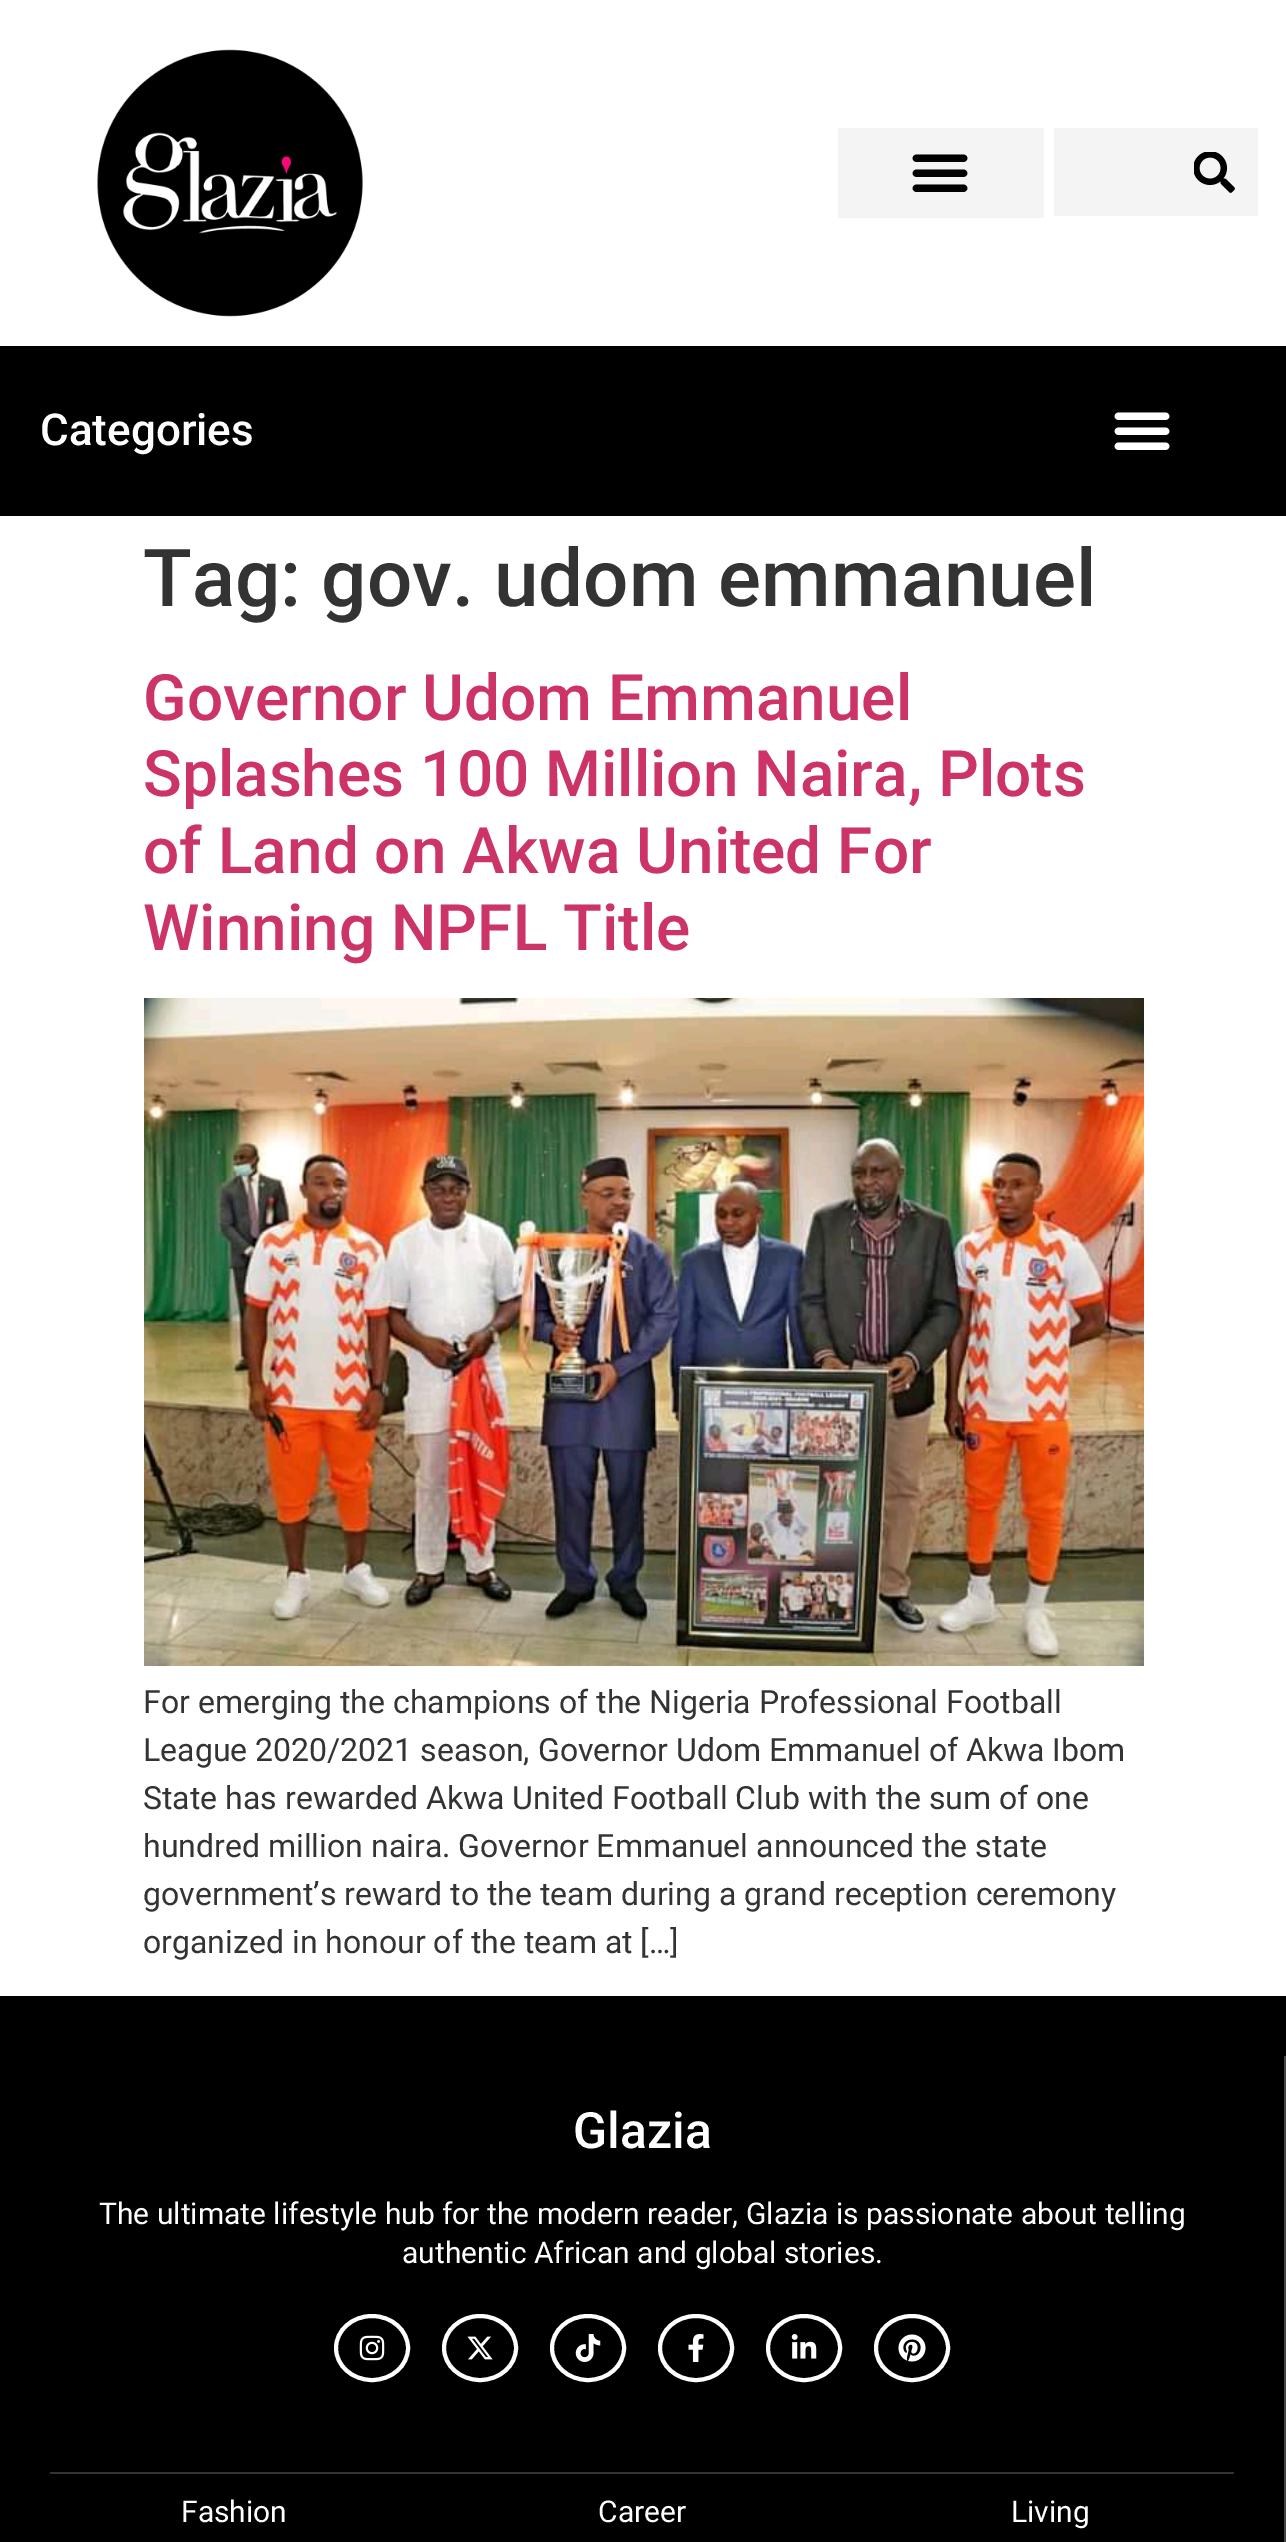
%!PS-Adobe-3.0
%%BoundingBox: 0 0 1286 2542
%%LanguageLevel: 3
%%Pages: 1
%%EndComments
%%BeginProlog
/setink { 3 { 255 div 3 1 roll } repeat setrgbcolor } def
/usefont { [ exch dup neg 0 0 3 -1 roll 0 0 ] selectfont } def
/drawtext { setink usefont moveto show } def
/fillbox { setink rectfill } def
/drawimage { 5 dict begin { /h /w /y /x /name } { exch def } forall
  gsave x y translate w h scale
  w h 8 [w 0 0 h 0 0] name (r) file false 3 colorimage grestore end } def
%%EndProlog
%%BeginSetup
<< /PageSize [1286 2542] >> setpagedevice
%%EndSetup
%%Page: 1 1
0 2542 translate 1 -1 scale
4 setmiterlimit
0 0 1286 2542 255 255 255 fillbox
(assets/img1.rgb) 97 49 266 268 drawimage
838 128 206 90 244 244 244 fillbox
(assets/img2.rgb) 912 154 56 38 drawimage
1054 128 204 88 244 244 244 fillbox
(assets/img3.rgb) 1194 152 41 41 drawimage
0 346 1286 170 0 0 0 fillbox
(Categories) 40 445 /Roboto-Medium 44 255 255 255 drawtext
(assets/img4.rgb) 1114 412 56 38 drawimage
(Tag: gov. udom emmanuel) 143 606 /Roboto-Medium 80 51 51 51 drawtext
(Governor Udom Emmanuel) 143 720 /Roboto-Medium 64 204 51 102 drawtext
(Splashes 100 Million Naira, Plots) 143 796 /Roboto-Medium 64 204 51 102 drawtext
(of Land on Akwa United For) 143 873 /Roboto-Medium 64 204 51 102 drawtext
(Winning NPFL Title) 143 950 /Roboto-Medium 64 204 51 102 drawtext
(assets/img5.rgb) 144 998 1000 668 drawimage
(For emerging the champions of the Nigeria Professional Football) 143 1713 /Roboto-Regular 32 51 51 51 drawtext
(League 2020/2021 season, Governor Udom Emmanuel of Akwa Ibom) 143 1761 /Roboto-Regular 32 51 51 51 drawtext
(State has rewarded Akwa United Football Club with the sum of one) 143 1809 /Roboto-Regular 32 51 51 51 drawtext
(hundred million naira. Governor Emmanuel announced the state) 143 1857 /Roboto-Regular 32 51 51 51 drawtext
(government’s reward to the team during a grand reception ceremony) 143 1905 /Roboto-Regular 32 51 51 51 drawtext
(organized in honour of the team at […]) 143 1953 /Roboto-Regular 32 51 51 51 drawtext
0 1996 1286 546 0 0 0 fillbox
1284 2056 2 486 67 67 67 fillbox
(Glazia) 573 2148 /Roboto-Medium 50 255 255 255 drawtext
(The ultimate lifestyle hub for the modern reader, Glazia is passionate about telling) 99 2224 /Roboto-Regular 30 255 255 255 drawtext
(authentic African and global stories.) 402 2263 /Roboto-Regular 30 255 255 255 drawtext
4 setlinewidth
372 2316 moveto 392 2316 408 2330.5 408 2348 curveto 408 2365.5 392 2380 372 2380 curveto 352 2380 336 2365.5 336 2348 curveto 336 2330.5 352 2316 372 2316 curveto closepath stroke
(assets/img6.rgb) 359 2335 26 26 drawimage
480 2316 moveto 500 2316 516 2330.5 516 2348 curveto 516 2365.5 500 2380 480 2380 curveto 460 2380 444 2365.5 444 2348 curveto 444 2330.5 460 2316 480 2316 curveto closepath stroke
(assets/img7.rgb) 467 2336 26 24 drawimage
588 2316 moveto 608 2316 624 2330.5 624 2348 curveto 624 2365.5 608 2380 588 2380 curveto 568 2380 552 2365.5 552 2348 curveto 552 2330.5 568 2316 588 2316 curveto closepath stroke
(assets/img8.rgb) 575 2334 26 28 drawimage
696 2316 moveto 716 2316 732 2330.5 732 2348 curveto 732 2365.5 716 2380 696 2380 curveto 676 2380 660 2365.5 660 2348 curveto 660 2330.5 676 2316 696 2316 curveto closepath stroke
(assets/img9.rgb) 688 2334 16 28 drawimage
804 2316 moveto 824 2316 840 2330.5 840 2348 curveto 840 2365.5 824 2380 804 2380 curveto 784 2380 768 2365.5 768 2348 curveto 768 2330.5 784 2316 804 2316 curveto closepath stroke
(assets/img10.rgb) 791 2334 26 25 drawimage
912 2316 moveto 932 2316 948 2330.5 948 2348 curveto 948 2365.5 932 2380 912 2380 curveto 892 2380 876 2365.5 876 2348 curveto 876 2330.5 892 2316 912 2316 curveto closepath stroke
(assets/img11.rgb) 898 2334 28 28 drawimage
50 2472 1184 2 51 51 51 fillbox
(Fashion) 181 2522 /Roboto-Regular 30 255 255 255 drawtext
(Career) 598 2522 /Roboto-Regular 30 255 255 255 drawtext
(Living) 1011 2522 /Roboto-Regular 30 255 255 255 drawtext
showpage
%%EOF
